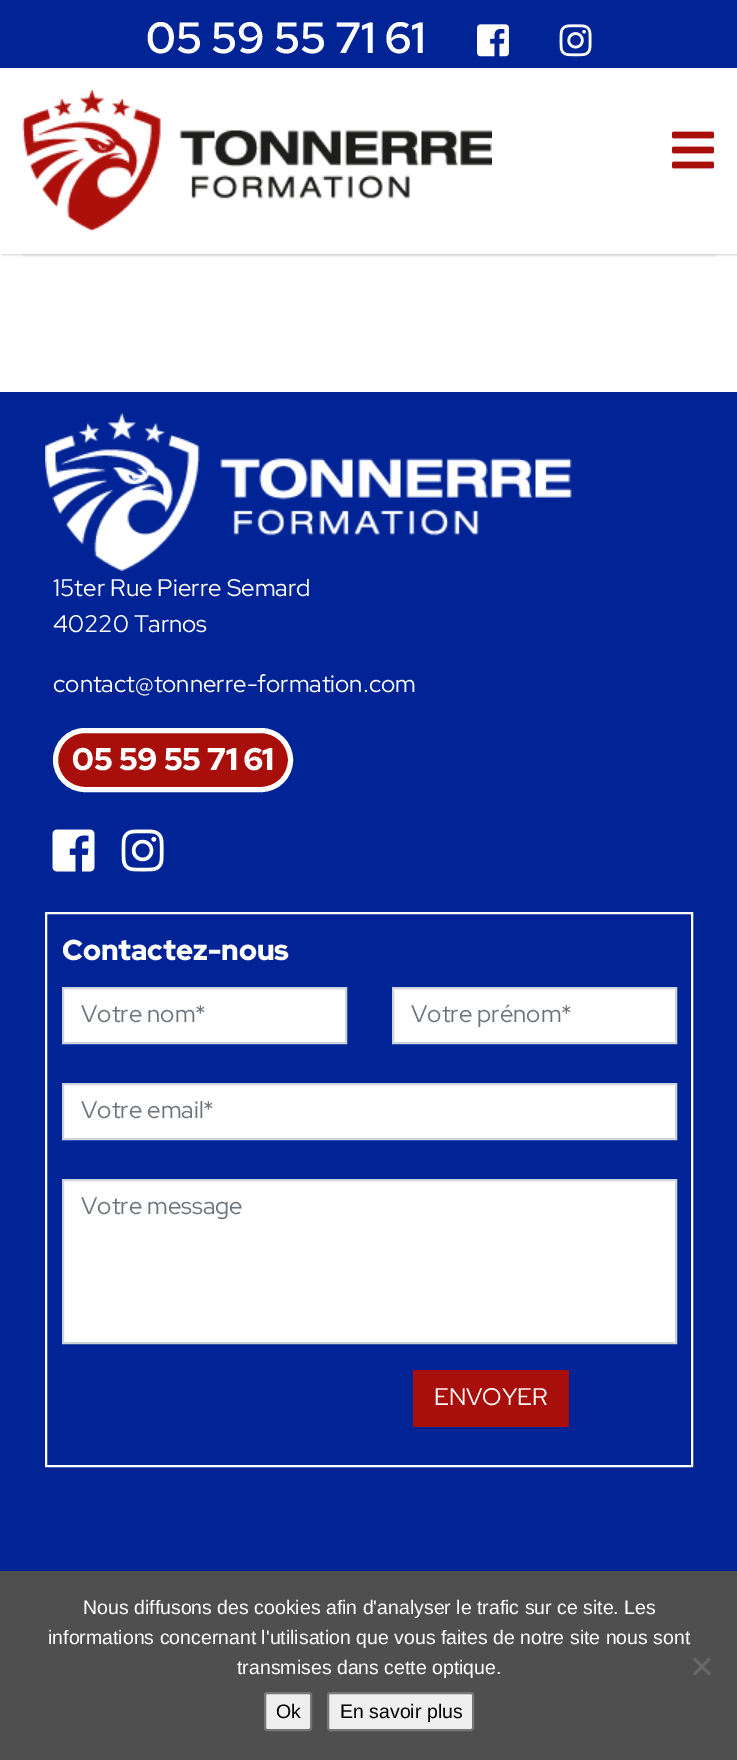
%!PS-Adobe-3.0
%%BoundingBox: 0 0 737 1760
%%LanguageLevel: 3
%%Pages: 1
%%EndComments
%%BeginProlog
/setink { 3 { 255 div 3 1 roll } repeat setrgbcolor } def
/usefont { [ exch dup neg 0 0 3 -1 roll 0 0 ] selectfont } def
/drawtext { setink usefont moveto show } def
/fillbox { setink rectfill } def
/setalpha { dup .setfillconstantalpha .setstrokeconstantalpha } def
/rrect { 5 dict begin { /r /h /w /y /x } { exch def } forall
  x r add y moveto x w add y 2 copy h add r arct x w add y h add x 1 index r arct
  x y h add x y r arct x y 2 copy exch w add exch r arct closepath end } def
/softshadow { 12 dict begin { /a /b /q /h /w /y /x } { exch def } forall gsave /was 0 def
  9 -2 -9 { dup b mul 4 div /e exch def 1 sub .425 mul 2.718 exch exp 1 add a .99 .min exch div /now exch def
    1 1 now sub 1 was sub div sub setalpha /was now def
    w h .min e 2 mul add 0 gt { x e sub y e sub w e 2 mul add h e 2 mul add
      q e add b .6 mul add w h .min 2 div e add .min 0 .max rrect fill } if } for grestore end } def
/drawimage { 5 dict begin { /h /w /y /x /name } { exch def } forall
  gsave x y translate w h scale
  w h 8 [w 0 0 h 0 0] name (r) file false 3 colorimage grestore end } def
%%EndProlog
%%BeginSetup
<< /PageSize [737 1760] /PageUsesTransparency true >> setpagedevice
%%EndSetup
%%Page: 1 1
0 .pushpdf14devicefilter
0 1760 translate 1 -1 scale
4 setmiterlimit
0 0 737 1760 255 255 255 fillbox
23 254 693 3 242 242 242 fillbox
0 0 0 setink
2 2 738 253 0 1 0.18 softshadow
0 68 737 186 255 255 255 fillbox
(assets/img1.rgb) 22 90 470 141 drawimage
(assets/img2.rgb) 672 131 42 38 drawimage
0 0 737 68 0 35 149 fillbox
(05 59 55 71 61) 146 53 /RedHatDisplay-Bold 43.75 255 255 255 drawtext
(assets/img3.rgb) 477 24 32 33 drawimage
(assets/img4.rgb) 559 24 33 33 drawimage
0 392 737 1179 0 35 149 fillbox
(assets/img5.rgb) 45 413 527 158 drawimage
(15ter Rue Pierre Semard) 53 596 /RedHatDisplay-Regular 24 255 255 255 drawtext
(40220 Tarnos) 53 632 /RedHatDisplay-Regular 24 255 255 255 drawtext
(contact@tonnerre-formation.com) 53 692 /RedHatDisplay-Regular 24 255 255 255 drawtext
169 15 10 setink
55.5 730.5 235 59 29.5 rrect gsave fill grestore
255 255 255 setink
5 setlinewidth
stroke
(05 59 55 71 61) 72 770 /RedHatDisplay-Black 31.25 255 255 255 drawtext
(assets/img6.rgb) 52 829 43 43 drawimage
(assets/img7.rgb) 121 829 43 43 drawimage
2 setlinewidth
46 913 646 553 rectstroke
(Contactez-nous) 62 960 /RedHatDisplay-Black 28.75 255 255 255 drawtext
63 988 moveto 346 988 lineto 346 1043 lineto 63 1043 lineto closepath gsave fill grestore
206 212 218 setink
stroke
(Votre nom*) 81 1022 /RedHatDisplay-Regular 24 108 117 125 drawtext
255 255 255 setink
393 988 moveto 676 988 lineto 676 1043 lineto 393 1043 lineto closepath gsave fill grestore
206 212 218 setink
stroke
(Votre prénom*) 411 1022 /RedHatDisplay-Regular 24 108 117 125 drawtext
255 255 255 setink
63 1084 moveto 676 1084 lineto 676 1139 lineto 63 1139 lineto closepath gsave fill grestore
206 212 218 setink
stroke
(Votre email*) 81 1118 /RedHatDisplay-Regular 24 108 117 125 drawtext
255 255 255 setink
63 1180 moveto 676 1180 lineto 676 1343 lineto 63 1343 lineto closepath gsave fill grestore
206 212 218 setink
stroke
(Votre message) 81 1214 /RedHatDisplay-Regular 24 108 117 125 drawtext
413 1370 156 57 169 15 10 fillbox
(ENVOYER) 434 1405 /RedHatDisplay-Regular 24 255 255 255 drawtext
0 1571 737 189 79 79 79 fillbox
(Nous diffusons des cookies afin d'analyser le trafic sur ce site. Les) 83 1614 /LiberationSans-Regular 19.5 255 255 255 drawtext
(informations concernant l'utilisation que vous faites de notre site nous sont) 48 1644 /LiberationSans-Regular 19.5 255 255 255 drawtext
(transmises dans cette optique.) 237 1674 /LiberationSans-Regular 19.5 255 255 255 drawtext
104 104 104 setink
709 1657.5 moveto 711 1659.5 lineto 695 1675.5 lineto 693 1673.5 lineto closepath fill
693 1659.5 moveto 695 1657.5 lineto 711 1673.5 lineto 709 1675.5 lineto closepath fill
239 239 239 setink
265 1693 46 37 2 rrect gsave fill grestore
118 118 118 setink
stroke
(Ok) 276 1718 /LiberationSans-Regular 19.5 0 0 0 drawtext
239 239 239 setink
328 1693 145 37 2 rrect gsave fill grestore
118 118 118 setink
stroke
(En savoir plus) 340 1718 /LiberationSans-Regular 19.5 0 0 0 drawtext
.poppdf14devicefilter showpage
%%EOF
